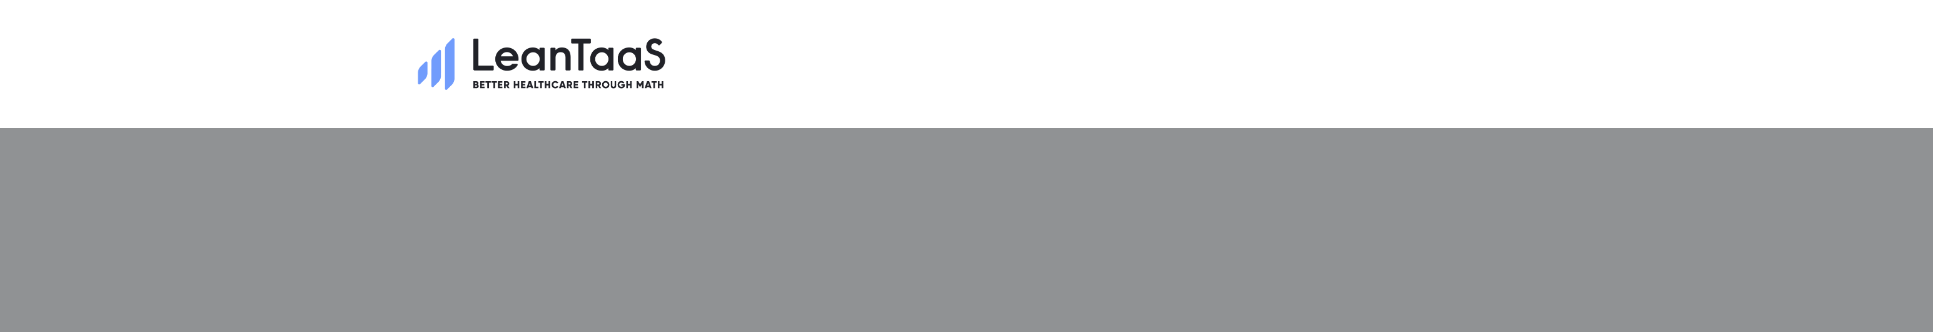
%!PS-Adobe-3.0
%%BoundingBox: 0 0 1933 332
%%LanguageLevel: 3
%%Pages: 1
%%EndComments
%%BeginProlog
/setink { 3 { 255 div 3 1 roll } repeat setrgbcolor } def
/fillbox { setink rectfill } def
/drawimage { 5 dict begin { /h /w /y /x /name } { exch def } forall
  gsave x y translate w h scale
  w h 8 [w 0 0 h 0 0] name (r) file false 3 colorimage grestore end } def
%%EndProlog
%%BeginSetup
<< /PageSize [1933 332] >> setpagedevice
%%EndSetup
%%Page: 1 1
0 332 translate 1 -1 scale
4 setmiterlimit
0 0 1933 332 255 255 255 fillbox
(assets/img1.rgb) 417 38 249 52 drawimage
0 128 1933 204 144 146 148 fillbox
showpage
%%EOF
